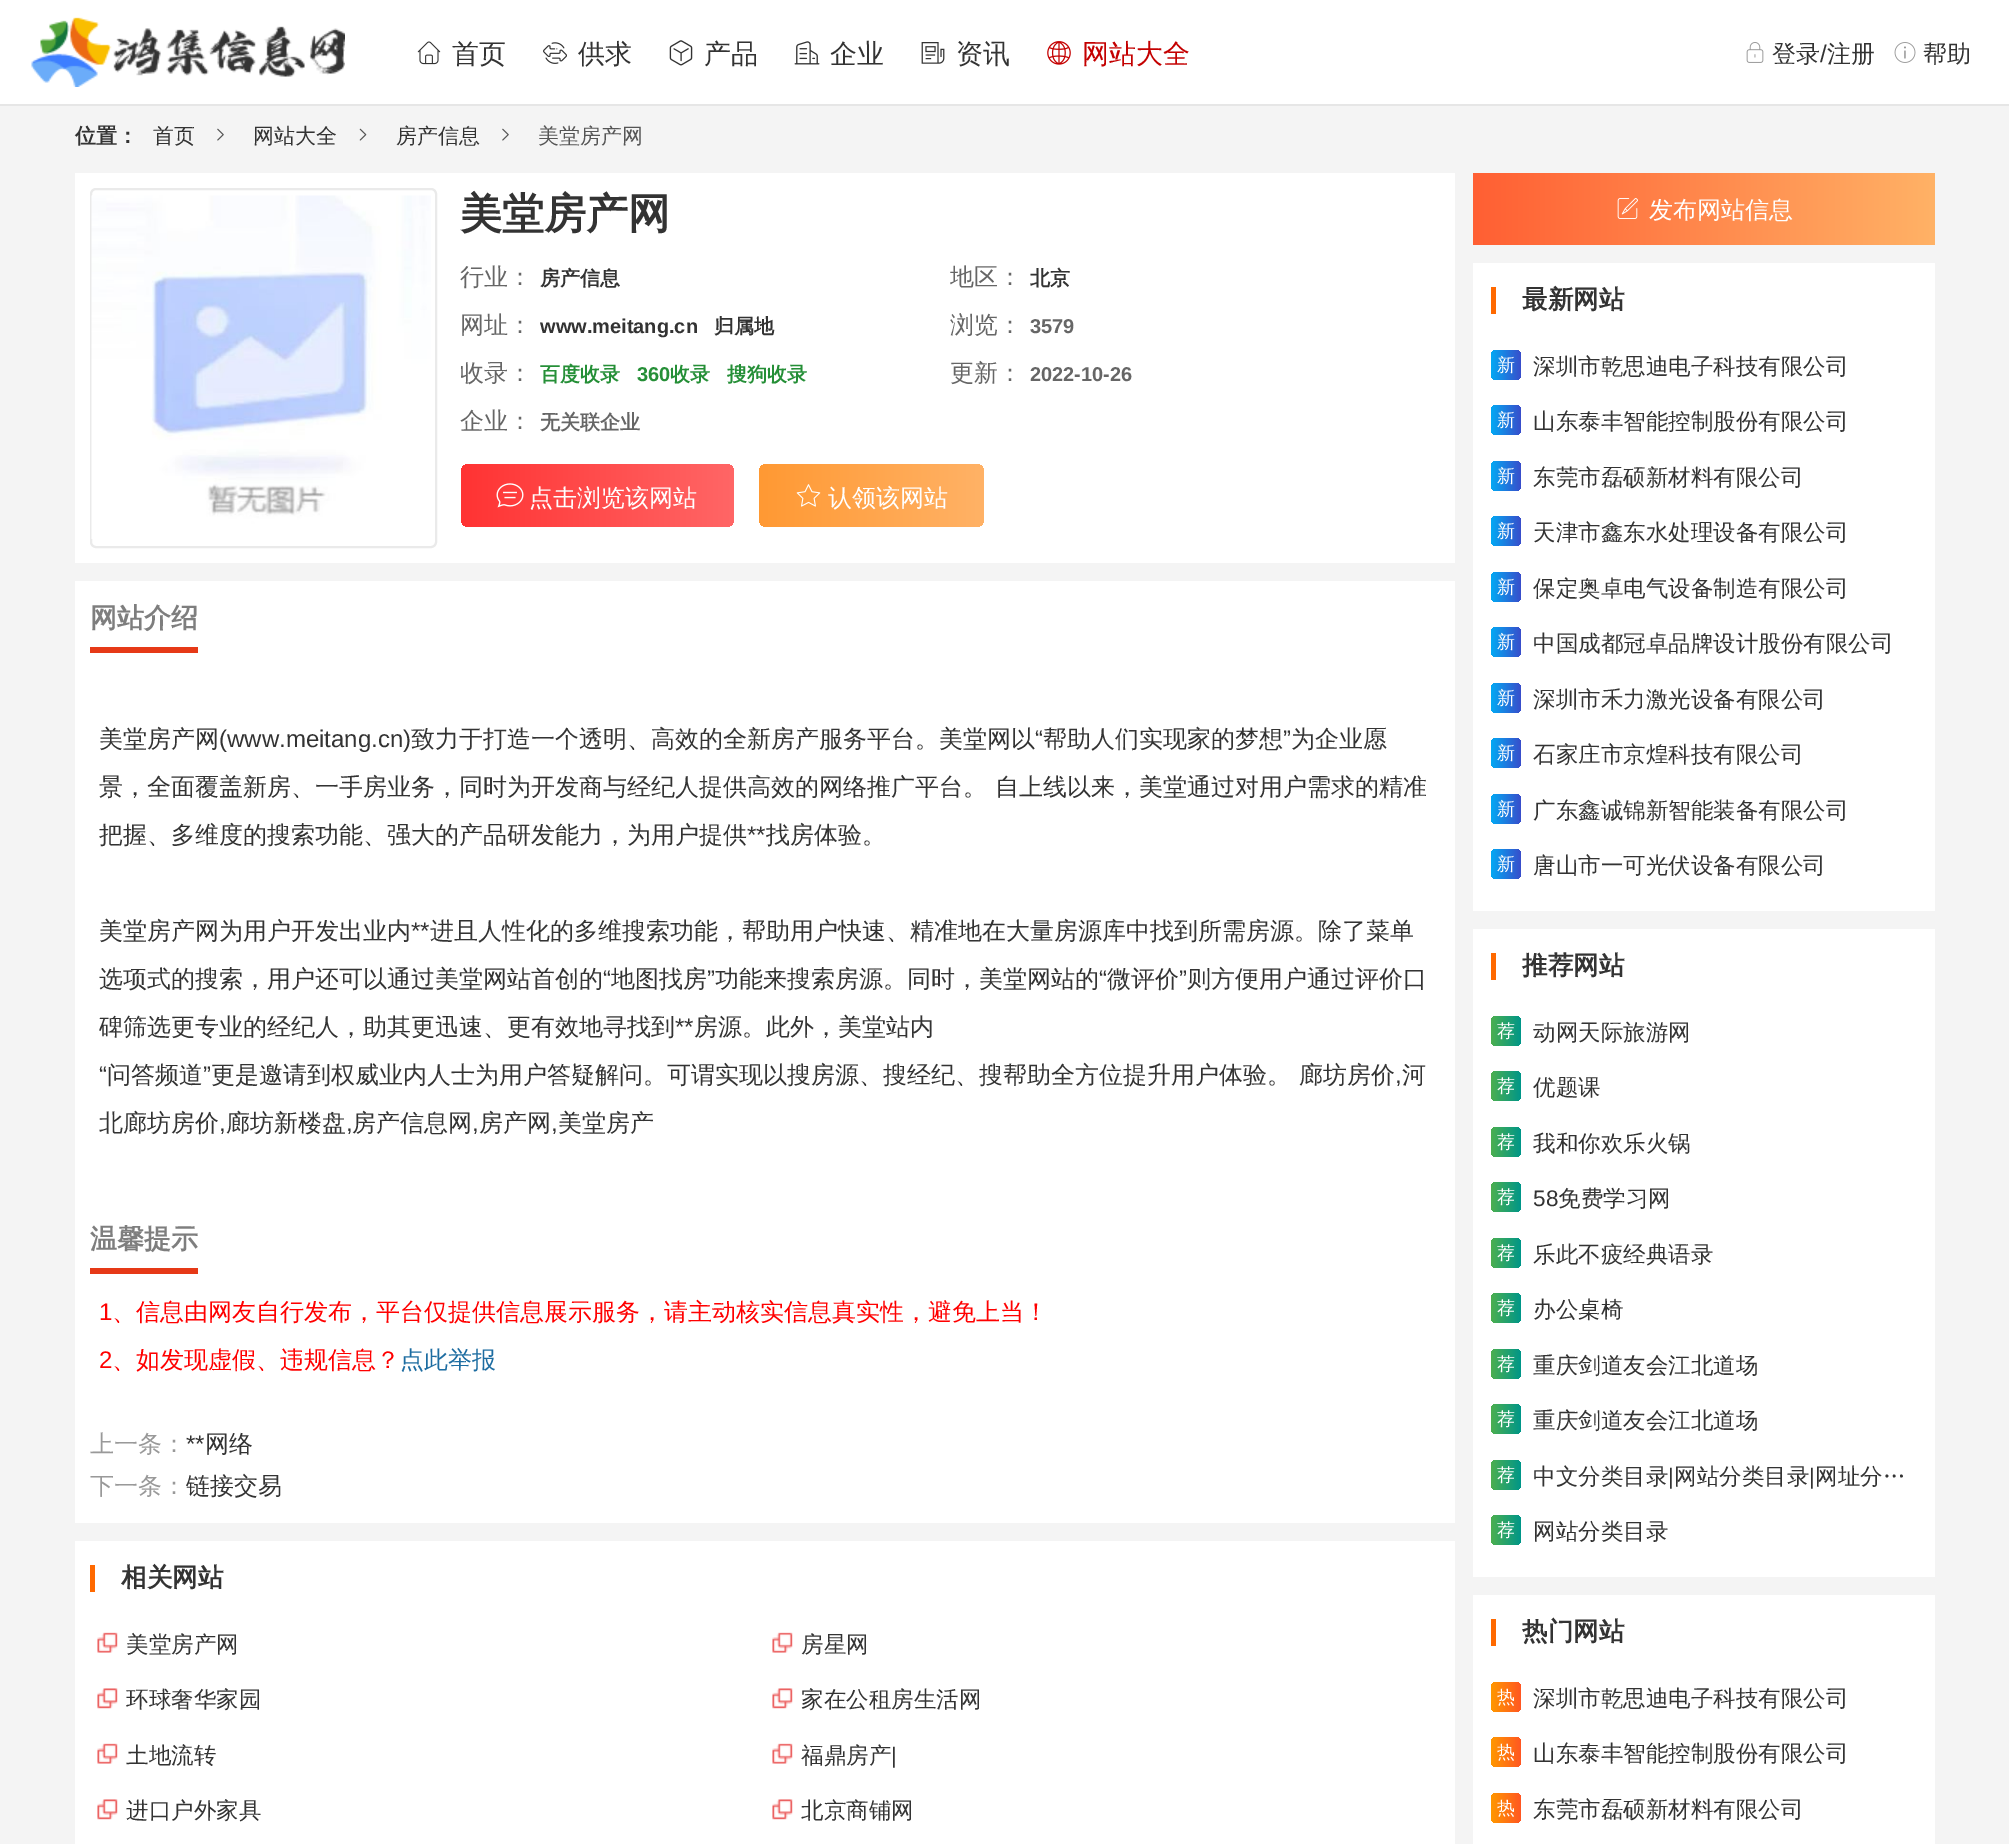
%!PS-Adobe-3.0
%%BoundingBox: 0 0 2009 1844
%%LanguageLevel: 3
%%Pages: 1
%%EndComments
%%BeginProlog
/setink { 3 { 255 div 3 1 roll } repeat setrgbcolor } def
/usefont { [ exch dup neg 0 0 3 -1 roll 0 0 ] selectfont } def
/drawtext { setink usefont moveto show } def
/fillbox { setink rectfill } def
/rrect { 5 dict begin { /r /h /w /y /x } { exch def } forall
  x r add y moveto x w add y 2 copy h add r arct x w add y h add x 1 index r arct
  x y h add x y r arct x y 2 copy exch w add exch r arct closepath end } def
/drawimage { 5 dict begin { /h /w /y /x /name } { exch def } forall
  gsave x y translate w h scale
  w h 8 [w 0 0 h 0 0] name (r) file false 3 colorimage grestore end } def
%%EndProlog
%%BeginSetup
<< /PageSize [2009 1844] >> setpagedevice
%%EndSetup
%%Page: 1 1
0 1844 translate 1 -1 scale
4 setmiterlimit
0 0 2009 1844 244 244 244 fillbox
0 0 2009 104 255 255 255 fillbox
0 104 2009 2 230 230 230 fillbox
(assets/img1.rgb) 31 17 314 70 drawimage
(assets/img2.rgb) 417 41 24 24 drawimage
(首页) 452 63 /WenQuanYiZenHei-Medium 27 51 51 51 drawtext
(assets/img3.rgb) 543 42 24 22 drawimage
(供求) 578 63 /WenQuanYiZenHei-Medium 27 51 51 51 drawtext
(assets/img4.rgb) 669 40 24 26 drawimage
(产品) 704 63 /WenQuanYiZenHei-Medium 27 51 51 51 drawtext
(assets/img5.rgb) 794 41 26 24 drawimage
(企业) 830 63 /WenQuanYiZenHei-Medium 27 51 51 51 drawtext
(assets/img6.rgb) 921 42 24 22 drawimage
(资讯) 956 63 /WenQuanYiZenHei-Medium 27 51 51 51 drawtext
(assets/img7.rgb) 1047 41 24 24 drawimage
(网站大全) 1082 63 /WenQuanYiZenHei-Medium 27 196 0 0 drawtext
(assets/img8.rgb) 1746 42 18 21 drawimage
(登录) 1772 62 /WenQuanYiZenHei-Medium 24 51 51 51 drawtext
(/) 1820 62 /LiberationSans-Regular 24 51 51 51 drawtext
(注册) 1827 62 /WenQuanYiZenHei-Medium 24 51 51 51 drawtext
(assets/img9.rgb) 1894 42 22 21 drawimage
(帮助) 1923 62 /WenQuanYiZenHei-Medium 24 51 51 51 drawtext
(位置：) 75 143 /WenQuanYiZenHei-Bold 21 51 51 51 drawtext
(首页) 153 143 /WenQuanYiZenHei-Medium 21 51 51 51 drawtext
(assets/img10.rgb) 217 128 7 13 drawimage
(网站大全) 253 143 /WenQuanYiZenHei-Medium 21 51 51 51 drawtext
(assets/img11.rgb) 359 128 8 13 drawimage
(房产信息) 396 143 /WenQuanYiZenHei-Medium 21 51 51 51 drawtext
(assets/img10.rgb) 502 128 7 13 drawimage
(美堂房产网) 538 143 /WenQuanYiZenHei-Medium 21 85 85 85 drawtext
75 173 1380 390 255 255 255 fillbox
234 234 234 setink
2 setlinewidth
91 189 345 358 5 rrect stroke
(assets/img12.rgb) 91 195 340 344 drawimage
(美堂房产网) 460 228 /WenQuanYiZenHei-Bold 42 51 51 51 drawtext
(行业：) 460 285 /WenQuanYiZenHei-Medium 24 102 102 102 drawtext
(房产信息) 540 285 /WenQuanYiZenHei-Bold 20 51 51 51 drawtext
(地区：) 950 285 /WenQuanYiZenHei-Medium 24 102 102 102 drawtext
(北京) 1030 285 /WenQuanYiZenHei-Bold 20 51 51 51 drawtext
(网址：) 460 333 /WenQuanYiZenHei-Medium 24 102 102 102 drawtext
(www.meitang.cn) 540 333 /LiberationSans-Bold 20 51 51 51 drawtext
(归属地) 714 333 /WenQuanYiZenHei-Bold 20 51 51 51 drawtext
(浏览：) 950 333 /WenQuanYiZenHei-Medium 24 102 102 102 drawtext
(3579) 1030 333 /LiberationSans-Bold 20 102 102 102 drawtext
(收录：) 460 381 /WenQuanYiZenHei-Medium 24 102 102 102 drawtext
(百度收录) 540 381 /WenQuanYiZenHei-Bold 20 37 143 55 drawtext
(360) 637 381 /LiberationSans-Bold 20 37 143 55 drawtext
(收录) 670 381 /WenQuanYiZenHei-Bold 20 37 143 55 drawtext
(搜狗收录) 727 381 /WenQuanYiZenHei-Bold 20 37 143 55 drawtext
(更新：) 950 381 /WenQuanYiZenHei-Medium 24 102 102 102 drawtext
(2022-10-26) 1030 381 /LiberationSans-Bold 20 102 102 102 drawtext
(企业：) 460 429 /WenQuanYiZenHei-Medium 24 102 102 102 drawtext
(无关联企业) 540 429 /WenQuanYiZenHei-Bold 20 102 102 102 drawtext
gsave 461 464 273 63 8 rrect clip newpath
<< /ShadingType 2 /ColorSpace /DeviceRGB /Coords [461 495 734 495] /Extend [true true] /Function << /FunctionType 2 /Domain [0 1] /C0 [1 0.2 0.2] /C1 [1 0.4 0.4] /N 1 >> >> shfill grestore
(assets/img13.rgb) 496 483 28 25 drawimage
(点击浏览该网站) 529 506 /WenQuanYiZenHei-Medium 24 255 255 255 drawtext
gsave 759 464 225 63 8 rrect clip newpath
<< /ShadingType 2 /ColorSpace /DeviceRGB /Coords [759 495 984 495] /Extend [true true] /Function << /FunctionType 2 /Domain [0 1] /C0 [1 0.6 0.2] /C1 [1 0.698 0.4] /N 1 >> >> shfill grestore
(assets/img14.rgb) 796 484 25 23 drawimage
(认领该网站) 828 506 /WenQuanYiZenHei-Medium 24 255 255 255 drawtext
75 581 1380 942 255 255 255 fillbox
(网站介绍) 90 627 /WenQuanYiZenHei-Bold 27 126 126 126 drawtext
90 647 108 6 230 57 23 fillbox
(美堂房产网) 99 747 /WenQuanYiZenHei-Medium 24 51 51 51 drawtext
(\(www.meitang.cn\)) 219 747 /LiberationSans-Regular 24 51 51 51 drawtext
(致力于打造一个透明、高效的全新房产服务平台。美堂网以) 411 747 /WenQuanYiZenHei-Medium 24 51 51 51 drawtext
(“) 1035 747 /LiberationSans-Regular 24 51 51 51 drawtext
(帮助人们实现家的梦想) 1043 747 /WenQuanYiZenHei-Medium 24 51 51 51 drawtext
(”) 1283 747 /LiberationSans-Regular 24 51 51 51 drawtext
(为企业愿) 1291 747 /WenQuanYiZenHei-Medium 24 51 51 51 drawtext
99 795 moveto 1 0 32 (景，全面覆盖新房、一手房业务，同时为开发商与经纪人提供高效的网络推广平台。 自上线以来，美堂通过对用户需求的精准) widthshow
(把握、多维度的搜索功能、强大的产品研发能力，为用户提供) 99 843 /WenQuanYiZenHei-Medium 24 51 51 51 drawtext
(**) 747 843 /LiberationSans-Regular 24 51 51 51 drawtext
(找房体验。) 766 843 /WenQuanYiZenHei-Medium 24 51 51 51 drawtext
(美堂房产网为用户开发出业内) 99 939 /WenQuanYiZenHei-Medium 24 51 51 51 drawtext
(**) 411 939 /LiberationSans-Regular 24 51 51 51 drawtext
(进且人性化的多维搜索功能，帮助用户快速、精准地在大量房源库中找到所需房源。除了菜单) 430 939 /WenQuanYiZenHei-Medium 24 51 51 51 drawtext
(选项式的搜索，用户还可以通过美堂网站首创的) 99 987 /WenQuanYiZenHei-Medium 24 51 51 51 drawtext
(“) 603 987 /LiberationSans-Regular 24 51 51 51 drawtext
(地图找房) 611 987 /WenQuanYiZenHei-Medium 24 51 51 51 drawtext
(”) 707 987 /LiberationSans-Regular 24 51 51 51 drawtext
(功能来搜索房源。同时，美堂网站的) 715 987 /WenQuanYiZenHei-Medium 24 51 51 51 drawtext
(“) 1099 987 /LiberationSans-Regular 24 51 51 51 drawtext
(微评价) 1107 987 /WenQuanYiZenHei-Medium 24 51 51 51 drawtext
(”) 1179 987 /LiberationSans-Regular 24 51 51 51 drawtext
(则方便用户通过评价口) 1187 987 /WenQuanYiZenHei-Medium 24 51 51 51 drawtext
(碑筛选更专业的经纪人，助其更迅速、更有效地寻找到) 99 1035 /WenQuanYiZenHei-Medium 24 51 51 51 drawtext
(**) 675 1035 /LiberationSans-Regular 24 51 51 51 drawtext
(房源。此外，美堂站内) 694 1035 /WenQuanYiZenHei-Medium 24 51 51 51 drawtext
(“) 99 1083 /LiberationSans-Regular 24 51 51 51 drawtext
(问答频道) 107 1083 /WenQuanYiZenHei-Medium 24 51 51 51 drawtext
(”) 203 1083 /LiberationSans-Regular 24 51 51 51 drawtext
/WenQuanYiZenHei-Medium 24 usefont
211 1083 moveto 1 0 32 (更是邀请到权威业内人士为用户答疑解问。可谓实现以搜房源、搜经纪、搜帮助全方位提升用户体验。 廊坊房价) widthshow
(河) 1402 1083 /WenQuanYiZenHei-Medium 24 51 51 51 drawtext
(,) 1395 1083 /LiberationSans-Regular 24 51 51 51 drawtext
(北廊坊房价) 99 1131 /WenQuanYiZenHei-Medium 24 51 51 51 drawtext
(,) 219 1131 /LiberationSans-Regular 24 51 51 51 drawtext
(廊坊新楼盘) 226 1131 /WenQuanYiZenHei-Medium 24 51 51 51 drawtext
(,) 346 1131 /LiberationSans-Regular 24 51 51 51 drawtext
(房产信息网) 352 1131 /WenQuanYiZenHei-Medium 24 51 51 51 drawtext
(,) 472 1131 /LiberationSans-Regular 24 51 51 51 drawtext
(房产网) 479 1131 /WenQuanYiZenHei-Medium 24 51 51 51 drawtext
(,) 551 1131 /LiberationSans-Regular 24 51 51 51 drawtext
(美堂房产) 558 1131 /WenQuanYiZenHei-Medium 24 51 51 51 drawtext
(温馨提示) 90 1248 /WenQuanYiZenHei-Bold 27 126 126 126 drawtext
90 1268 108 6 230 57 23 fillbox
(1) 99 1320 /LiberationSans-Regular 24 255 0 0 drawtext
(、信息由网友自行发布，平台仅提供信息展示服务，请主动核实信息真实性，避免上当！) 112 1320 /WenQuanYiZenHei-Medium 24 255 0 0 drawtext
(2) 99 1368 /LiberationSans-Regular 24 255 0 0 drawtext
(、如发现虚假、违规信息？) 112 1368 /WenQuanYiZenHei-Medium 24 255 0 0 drawtext
(点此举报) 400 1368 /WenQuanYiZenHei-Medium 24 28 108 161 drawtext
(上一条：) 90 1452 /WenQuanYiZenHei-Medium 24 153 153 153 drawtext
(**) 186 1452 /LiberationSans-Regular 24 51 51 51 drawtext
(网络) 205 1452 /WenQuanYiZenHei-Medium 24 51 51 51 drawtext
(下一条：) 90 1494 /WenQuanYiZenHei-Medium 24 153 153 153 drawtext
(链接交易) 186 1494 /WenQuanYiZenHei-Medium 24 51 51 51 drawtext
75 1541 1380 303 255 255 255 fillbox
90 1565 5 27 255 105 0 fillbox
(相关网站) 121 1586 /WenQuanYiZenHei-Bold 25.5 51 51 51 drawtext
(assets/img15.rgb) 97 1632 21 21 drawimage
(美堂房产网) 126 1652 /WenQuanYiZenHei-Medium 22.5 51 51 51 drawtext
(assets/img15.rgb) 772 1632 21 21 drawimage
(房星网) 801 1652 /WenQuanYiZenHei-Medium 22.5 51 51 51 drawtext
(assets/img16.rgb) 97 1688 21 21 drawimage
(环球奢华家园) 126 1707 /WenQuanYiZenHei-Medium 22.5 51 51 51 drawtext
(assets/img16.rgb) 772 1688 21 21 drawimage
(家在公租房生活网) 801 1707 /WenQuanYiZenHei-Medium 22.5 51 51 51 drawtext
(assets/img15.rgb) 97 1743 21 21 drawimage
(土地流转) 126 1763 /WenQuanYiZenHei-Medium 22.5 51 51 51 drawtext
(assets/img15.rgb) 772 1743 21 21 drawimage
(福鼎房产) 801 1763 /WenQuanYiZenHei-Medium 22.5 51 51 51 drawtext
(|) 891 1763 /LiberationSans-Regular 22.5 51 51 51 drawtext
(assets/img16.rgb) 97 1799 21 21 drawimage
(进口户外家具) 126 1818 /WenQuanYiZenHei-Medium 22.5 51 51 51 drawtext
(assets/img16.rgb) 772 1799 21 21 drawimage
(北京商铺网) 801 1818 /WenQuanYiZenHei-Medium 22.5 51 51 51 drawtext
gsave 1473 173 moveto 1935 173 lineto 1935 245 lineto 1473 245 lineto closepath clip newpath
<< /ShadingType 2 /ColorSpace /DeviceRGB /Coords [1473 209 1935 209] /Extend [true true] /Function << /FunctionType 2 /Domain [0 1] /C0 [1 0.373 0.2] /C1 [1 0.698 0.4] /N 1 >> >> shfill grestore
(assets/img17.rgb) 1617 198 21 21 drawimage
(发布网站信息) 1649 218 /WenQuanYiZenHei-Medium 24 255 255 255 drawtext
1473 263 462 648 255 255 255 fillbox
1491 287 5 27 255 105 0 fillbox
(最新网站) 1522 308 /WenQuanYiZenHei-Bold 25.5 51 51 51 drawtext
gsave 1491 350 30 30 5 rrect clip newpath
<< /ShadingType 2 /ColorSpace /DeviceRGB /Coords [1491 365 1521 365] /Extend [true true] /Function << /FunctionType 2 /Domain [0 1] /C0 [0.012 0.663 0.957] /C1 [0.22 0.306 0.796] /N 1 >> >> shfill grestore
(新) 1497 371 /WenQuanYiZenHei-Medium 18 255 255 255 drawtext
(深圳市乾思迪电子科技有限公司) 1533 374 /WenQuanYiZenHei-Medium 22.5 51 51 51 drawtext
gsave 1491 405 30 30 5 rrect clip newpath
<< /ShadingType 2 /ColorSpace /DeviceRGB /Coords [1491 420 1521 420] /Extend [true true] /Function << /FunctionType 2 /Domain [0 1] /C0 [0.012 0.663 0.957] /C1 [0.22 0.306 0.796] /N 1 >> >> shfill grestore
(新) 1497 426 /WenQuanYiZenHei-Medium 18 255 255 255 drawtext
(山东泰丰智能控制股份有限公司) 1533 429 /WenQuanYiZenHei-Medium 22.5 51 51 51 drawtext
gsave 1491 461 30 30 5 rrect clip newpath
<< /ShadingType 2 /ColorSpace /DeviceRGB /Coords [1491 476 1521 476] /Extend [true true] /Function << /FunctionType 2 /Domain [0 1] /C0 [0.012 0.663 0.957] /C1 [0.22 0.306 0.796] /N 1 >> >> shfill grestore
(新) 1497 482 /WenQuanYiZenHei-Medium 18 255 255 255 drawtext
(东莞市磊硕新材料有限公司) 1533 485 /WenQuanYiZenHei-Medium 22.5 51 51 51 drawtext
gsave 1491 516 30 30 5 rrect clip newpath
<< /ShadingType 2 /ColorSpace /DeviceRGB /Coords [1491 531 1521 531] /Extend [true true] /Function << /FunctionType 2 /Domain [0 1] /C0 [0.012 0.663 0.957] /C1 [0.22 0.306 0.796] /N 1 >> >> shfill grestore
(新) 1497 537 /WenQuanYiZenHei-Medium 18 255 255 255 drawtext
(天津市鑫东水处理设备有限公司) 1533 540 /WenQuanYiZenHei-Medium 22.5 51 51 51 drawtext
gsave 1491 572 30 30 5 rrect clip newpath
<< /ShadingType 2 /ColorSpace /DeviceRGB /Coords [1491 587 1521 587] /Extend [true true] /Function << /FunctionType 2 /Domain [0 1] /C0 [0.012 0.663 0.957] /C1 [0.22 0.306 0.796] /N 1 >> >> shfill grestore
(新) 1497 593 /WenQuanYiZenHei-Medium 18 255 255 255 drawtext
(保定奥卓电气设备制造有限公司) 1533 596 /WenQuanYiZenHei-Medium 22.5 51 51 51 drawtext
gsave 1491 627 30 30 5 rrect clip newpath
<< /ShadingType 2 /ColorSpace /DeviceRGB /Coords [1491 642 1521 642] /Extend [true true] /Function << /FunctionType 2 /Domain [0 1] /C0 [0.012 0.663 0.957] /C1 [0.22 0.306 0.796] /N 1 >> >> shfill grestore
(新) 1497 648 /WenQuanYiZenHei-Medium 18 255 255 255 drawtext
(中国成都冠卓品牌设计股份有限公司) 1533 651 /WenQuanYiZenHei-Medium 22.5 51 51 51 drawtext
gsave 1491 683 30 30 5 rrect clip newpath
<< /ShadingType 2 /ColorSpace /DeviceRGB /Coords [1491 698 1521 698] /Extend [true true] /Function << /FunctionType 2 /Domain [0 1] /C0 [0.012 0.663 0.957] /C1 [0.22 0.306 0.796] /N 1 >> >> shfill grestore
(新) 1497 704 /WenQuanYiZenHei-Medium 18 255 255 255 drawtext
(深圳市禾力激光设备有限公司) 1533 707 /WenQuanYiZenHei-Medium 22.5 51 51 51 drawtext
gsave 1491 738 30 30 5 rrect clip newpath
<< /ShadingType 2 /ColorSpace /DeviceRGB /Coords [1491 753 1521 753] /Extend [true true] /Function << /FunctionType 2 /Domain [0 1] /C0 [0.012 0.663 0.957] /C1 [0.22 0.306 0.796] /N 1 >> >> shfill grestore
(新) 1497 759 /WenQuanYiZenHei-Medium 18 255 255 255 drawtext
(石家庄市京煌科技有限公司) 1533 762 /WenQuanYiZenHei-Medium 22.5 51 51 51 drawtext
gsave 1491 794 30 30 5 rrect clip newpath
<< /ShadingType 2 /ColorSpace /DeviceRGB /Coords [1491 809 1521 809] /Extend [true true] /Function << /FunctionType 2 /Domain [0 1] /C0 [0.012 0.663 0.957] /C1 [0.22 0.306 0.796] /N 1 >> >> shfill grestore
(新) 1497 815 /WenQuanYiZenHei-Medium 18 255 255 255 drawtext
(广东鑫诚锦新智能装备有限公司) 1533 818 /WenQuanYiZenHei-Medium 22.5 51 51 51 drawtext
gsave 1491 849 30 30 5 rrect clip newpath
<< /ShadingType 2 /ColorSpace /DeviceRGB /Coords [1491 864 1521 864] /Extend [true true] /Function << /FunctionType 2 /Domain [0 1] /C0 [0.012 0.663 0.957] /C1 [0.22 0.306 0.796] /N 1 >> >> shfill grestore
(新) 1497 870 /WenQuanYiZenHei-Medium 18 255 255 255 drawtext
(唐山市一可光伏设备有限公司) 1533 873 /WenQuanYiZenHei-Medium 22.5 51 51 51 drawtext
1473 929 462 648 255 255 255 fillbox
1491 953 5 27 255 105 0 fillbox
(推荐网站) 1522 974 /WenQuanYiZenHei-Bold 25.5 51 51 51 drawtext
gsave 1491 1016 30 30 5 rrect clip newpath
<< /ShadingType 2 /ColorSpace /DeviceRGB /Coords [1491 1031 1521 1031] /Extend [true true] /Function << /FunctionType 2 /Domain [0 1] /C0 [0.298 0.686 0.314] /C1 [0 0.588 0.533] /N 1 >> >> shfill grestore
(荐) 1497 1037 /WenQuanYiZenHei-Medium 18 255 255 255 drawtext
(动网天际旅游网) 1533 1040 /WenQuanYiZenHei-Medium 22.5 51 51 51 drawtext
gsave 1491 1071 30 30 5 rrect clip newpath
<< /ShadingType 2 /ColorSpace /DeviceRGB /Coords [1491 1086 1521 1086] /Extend [true true] /Function << /FunctionType 2 /Domain [0 1] /C0 [0.298 0.686 0.314] /C1 [0 0.588 0.533] /N 1 >> >> shfill grestore
(荐) 1497 1092 /WenQuanYiZenHei-Medium 18 255 255 255 drawtext
(优题课) 1533 1095 /WenQuanYiZenHei-Medium 22.5 51 51 51 drawtext
gsave 1491 1127 30 30 5 rrect clip newpath
<< /ShadingType 2 /ColorSpace /DeviceRGB /Coords [1491 1142 1521 1142] /Extend [true true] /Function << /FunctionType 2 /Domain [0 1] /C0 [0.298 0.686 0.314] /C1 [0 0.588 0.533] /N 1 >> >> shfill grestore
(荐) 1497 1148 /WenQuanYiZenHei-Medium 18 255 255 255 drawtext
(我和你欢乐火锅) 1533 1151 /WenQuanYiZenHei-Medium 22.5 51 51 51 drawtext
gsave 1491 1182 30 30 5 rrect clip newpath
<< /ShadingType 2 /ColorSpace /DeviceRGB /Coords [1491 1197 1521 1197] /Extend [true true] /Function << /FunctionType 2 /Domain [0 1] /C0 [0.298 0.686 0.314] /C1 [0 0.588 0.533] /N 1 >> >> shfill grestore
(荐) 1497 1203 /WenQuanYiZenHei-Medium 18 255 255 255 drawtext
(58) 1533 1206 /LiberationSans-Regular 22.5 51 51 51 drawtext
(免费学习网) 1558 1206 /WenQuanYiZenHei-Medium 22.5 51 51 51 drawtext
gsave 1491 1238 30 30 5 rrect clip newpath
<< /ShadingType 2 /ColorSpace /DeviceRGB /Coords [1491 1253 1521 1253] /Extend [true true] /Function << /FunctionType 2 /Domain [0 1] /C0 [0.298 0.686 0.314] /C1 [0 0.588 0.533] /N 1 >> >> shfill grestore
(荐) 1497 1259 /WenQuanYiZenHei-Medium 18 255 255 255 drawtext
(乐此不疲经典语录) 1533 1262 /WenQuanYiZenHei-Medium 22.5 51 51 51 drawtext
gsave 1491 1293 30 30 5 rrect clip newpath
<< /ShadingType 2 /ColorSpace /DeviceRGB /Coords [1491 1308 1521 1308] /Extend [true true] /Function << /FunctionType 2 /Domain [0 1] /C0 [0.298 0.686 0.314] /C1 [0 0.588 0.533] /N 1 >> >> shfill grestore
(荐) 1497 1314 /WenQuanYiZenHei-Medium 18 255 255 255 drawtext
(办公桌椅) 1533 1317 /WenQuanYiZenHei-Medium 22.5 51 51 51 drawtext
gsave 1491 1349 30 30 5 rrect clip newpath
<< /ShadingType 2 /ColorSpace /DeviceRGB /Coords [1491 1364 1521 1364] /Extend [true true] /Function << /FunctionType 2 /Domain [0 1] /C0 [0.298 0.686 0.314] /C1 [0 0.588 0.533] /N 1 >> >> shfill grestore
(荐) 1497 1370 /WenQuanYiZenHei-Medium 18 255 255 255 drawtext
(重庆剑道友会江北道场) 1533 1373 /WenQuanYiZenHei-Medium 22.5 51 51 51 drawtext
gsave 1491 1404 30 30 5 rrect clip newpath
<< /ShadingType 2 /ColorSpace /DeviceRGB /Coords [1491 1419 1521 1419] /Extend [true true] /Function << /FunctionType 2 /Domain [0 1] /C0 [0.298 0.686 0.314] /C1 [0 0.588 0.533] /N 1 >> >> shfill grestore
(荐) 1497 1425 /WenQuanYiZenHei-Medium 18 255 255 255 drawtext
(重庆剑道友会江北道场) 1533 1428 /WenQuanYiZenHei-Medium 22.5 51 51 51 drawtext
gsave 1491 1460 30 30 5 rrect clip newpath
<< /ShadingType 2 /ColorSpace /DeviceRGB /Coords [1491 1475 1521 1475] /Extend [true true] /Function << /FunctionType 2 /Domain [0 1] /C0 [0.298 0.686 0.314] /C1 [0 0.588 0.533] /N 1 >> >> shfill grestore
(荐) 1497 1481 /WenQuanYiZenHei-Medium 18 255 255 255 drawtext
(中文分类目录) 1533 1484 /WenQuanYiZenHei-Medium 22.5 51 51 51 drawtext
(|) 1668 1484 /LiberationSans-Regular 22.5 51 51 51 drawtext
(网站分类目录) 1674 1484 /WenQuanYiZenHei-Medium 22.5 51 51 51 drawtext
(|) 1809 1484 /LiberationSans-Regular 22.5 51 51 51 drawtext
(网址分…) 1815 1484 /WenQuanYiZenHei-Medium 22.5 51 51 51 drawtext
gsave 1491 1515 30 30 5 rrect clip newpath
<< /ShadingType 2 /ColorSpace /DeviceRGB /Coords [1491 1530 1521 1530] /Extend [true true] /Function << /FunctionType 2 /Domain [0 1] /C0 [0.298 0.686 0.314] /C1 [0 0.588 0.533] /N 1 >> >> shfill grestore
(荐) 1497 1536 /WenQuanYiZenHei-Medium 18 255 255 255 drawtext
(网站分类目录) 1533 1539 /WenQuanYiZenHei-Medium 22.5 51 51 51 drawtext
1473 1595 462 249 255 255 255 fillbox
1491 1619 5 27 255 105 0 fillbox
(热门网站) 1522 1640 /WenQuanYiZenHei-Bold 25.5 51 51 51 drawtext
gsave 1491 1682 30 30 5 rrect clip newpath
<< /ShadingType 2 /ColorSpace /DeviceRGB /Coords [1491 1697 1521 1697] /Extend [true true] /Function << /FunctionType 2 /Domain [0 1] /C0 [1 0.596 0] /C1 [1 0.341 0.133] /N 1 >> >> shfill grestore
(热) 1497 1703 /WenQuanYiZenHei-Medium 18 255 255 255 drawtext
(深圳市乾思迪电子科技有限公司) 1533 1706 /WenQuanYiZenHei-Medium 22.5 51 51 51 drawtext
gsave 1491 1737 30 30 5 rrect clip newpath
<< /ShadingType 2 /ColorSpace /DeviceRGB /Coords [1491 1752 1521 1752] /Extend [true true] /Function << /FunctionType 2 /Domain [0 1] /C0 [1 0.596 0] /C1 [1 0.341 0.133] /N 1 >> >> shfill grestore
(热) 1497 1758 /WenQuanYiZenHei-Medium 18 255 255 255 drawtext
(山东泰丰智能控制股份有限公司) 1533 1761 /WenQuanYiZenHei-Medium 22.5 51 51 51 drawtext
gsave 1491 1793 30 30 5 rrect clip newpath
<< /ShadingType 2 /ColorSpace /DeviceRGB /Coords [1491 1808 1521 1808] /Extend [true true] /Function << /FunctionType 2 /Domain [0 1] /C0 [1 0.596 0] /C1 [1 0.341 0.133] /N 1 >> >> shfill grestore
(热) 1497 1814 /WenQuanYiZenHei-Medium 18 255 255 255 drawtext
(东莞市磊硕新材料有限公司) 1533 1817 /WenQuanYiZenHei-Medium 22.5 51 51 51 drawtext
showpage
%%EOF
